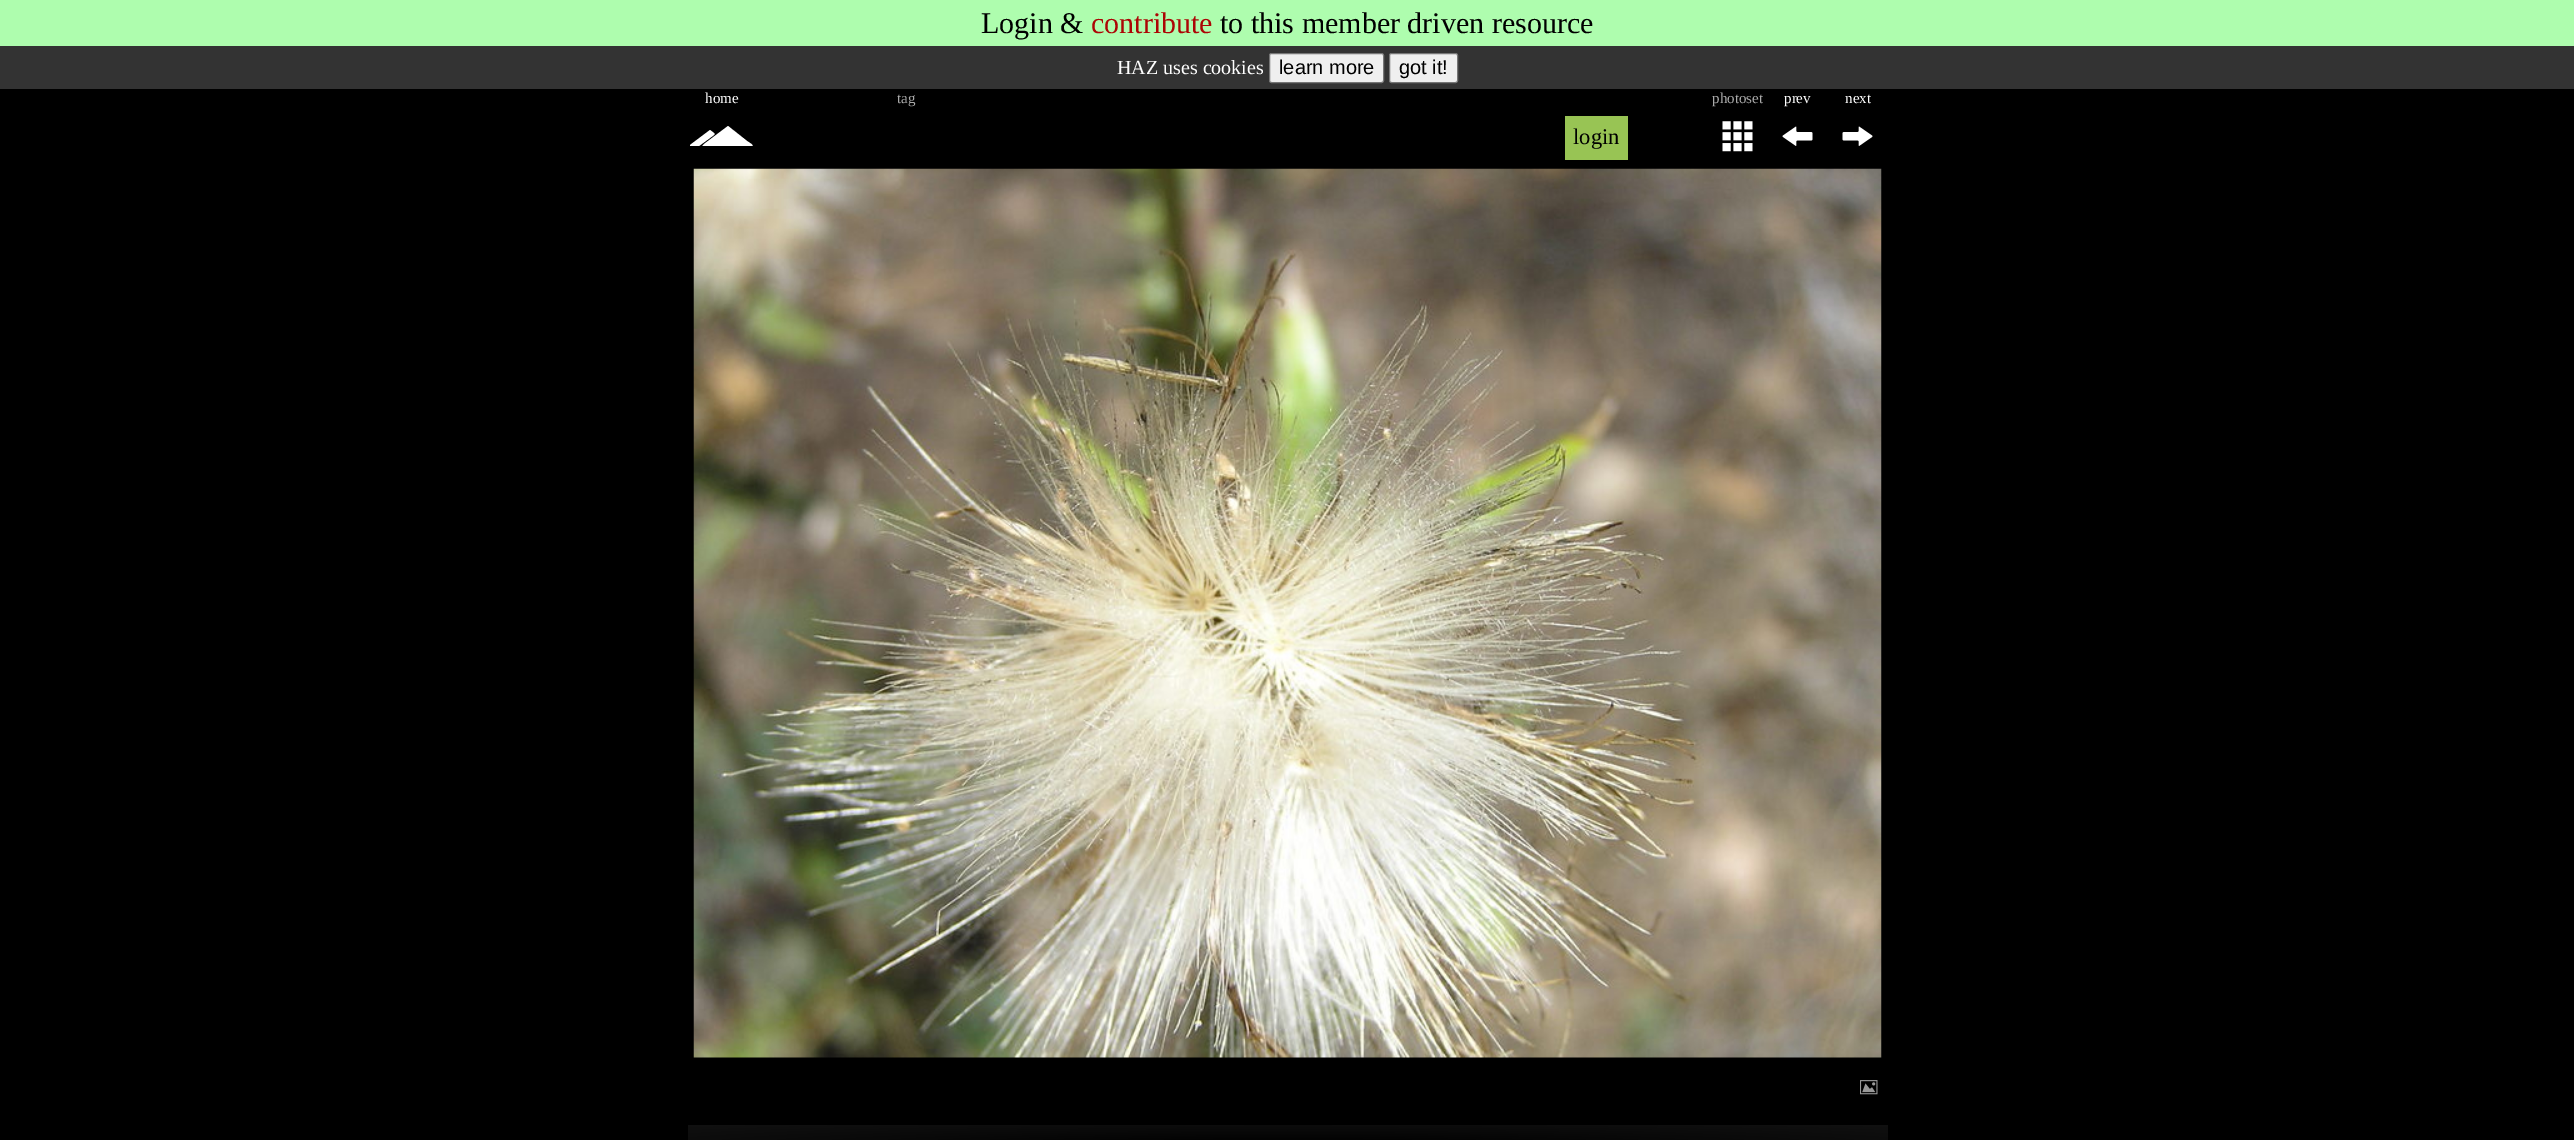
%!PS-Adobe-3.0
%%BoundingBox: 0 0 2574 1140
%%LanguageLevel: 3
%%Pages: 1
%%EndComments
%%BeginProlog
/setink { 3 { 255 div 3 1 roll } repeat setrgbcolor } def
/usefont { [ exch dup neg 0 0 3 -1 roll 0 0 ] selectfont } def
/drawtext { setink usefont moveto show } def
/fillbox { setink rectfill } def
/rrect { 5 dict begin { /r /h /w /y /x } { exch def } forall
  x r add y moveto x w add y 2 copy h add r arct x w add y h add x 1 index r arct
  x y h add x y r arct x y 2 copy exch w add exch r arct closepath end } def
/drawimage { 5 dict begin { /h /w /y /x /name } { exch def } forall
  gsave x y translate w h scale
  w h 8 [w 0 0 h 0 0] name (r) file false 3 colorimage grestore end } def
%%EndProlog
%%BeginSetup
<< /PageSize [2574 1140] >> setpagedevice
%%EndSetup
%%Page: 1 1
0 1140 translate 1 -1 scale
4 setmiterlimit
0 0 2574 1140 0 0 0 fillbox
0 0 2574 46 174 253 174 fillbox
(Login &) 981 33 /LiberationSerif-Regular 30 0 0 0 drawtext
(contribute) 1091 33 /LiberationSerif-Regular 30 172 5 5 drawtext
(to this member driven resource) 1220 33 /LiberationSerif-Regular 30 0 0 0 drawtext
0 46 2574 43 51 51 51 fillbox
(HAZ uses cookies) 1117 74 /LiberationSerif-Regular 20 255 255 255 drawtext
239 239 239 setink
1269.5 53.5 114 29 2 rrect gsave fill grestore
118 118 118 setink
stroke
(learn more) 1279 74 /LiberationSans-Regular 20 0 0 0 drawtext
239 239 239 setink
1389.5 53.5 68 29 2 rrect gsave fill grestore
118 118 118 setink
stroke
(got it!) 1399 74 /LiberationSans-Regular 20 0 0 0 drawtext
(home) 705 103 /LiberationSerif-Regular 15 255 255 255 drawtext
(tag) 897 103 /LiberationSerif-Regular 15 170 170 170 drawtext
(photoset) 1712 103 /LiberationSerif-Regular 15 170 170 170 drawtext
(prev) 1784 103 /LiberationSerif-Regular 15 255 255 255 drawtext
(next) 1845 103 /LiberationSerif-Regular 15 255 255 255 drawtext
690 146 moveto 690 145 lineto 710 130 lineto 714 133 lineto 715 134 715 134 714 135 curveto 699 146 lineto closepath 703 146 moveto 702 146 703 145 704 144 curveto 728 126 lineto 747 141 lineto 748 142 756 146 751 146 curveto closepath fill
1565 116 63 44 152 196 84 fillbox
(login) 1573 144 /LiberationSerif-Regular 22.5 0 0 0 drawtext
(assets/img1.rgb) 1722 121 31 31 drawimage
(assets/img2.rgb) 1782 126 31 20 drawimage
(assets/img3.rgb) 1842 126 31 20 drawimage
(assets/img4.rgb) 693 168 1189 890 drawimage
(assets/img5.rgb) 1860 1080 18 15 drawimage
gsave 688 1125 moveto 1888 1125 lineto 1888 1140 lineto 688 1140 lineto closepath clip newpath 1288 1144 translate 849 27 scale
<< /ShadingType 3 /ColorSpace /DeviceRGB /Coords [0 0 0 0 0 1] /Extend [true true] /Function << /FunctionType 2 /Domain [0 1] /C0 [0 0 0] /C1 [0.067 0.067 0.067] /N 1 >> >> shfill grestore
showpage
%%EOF
